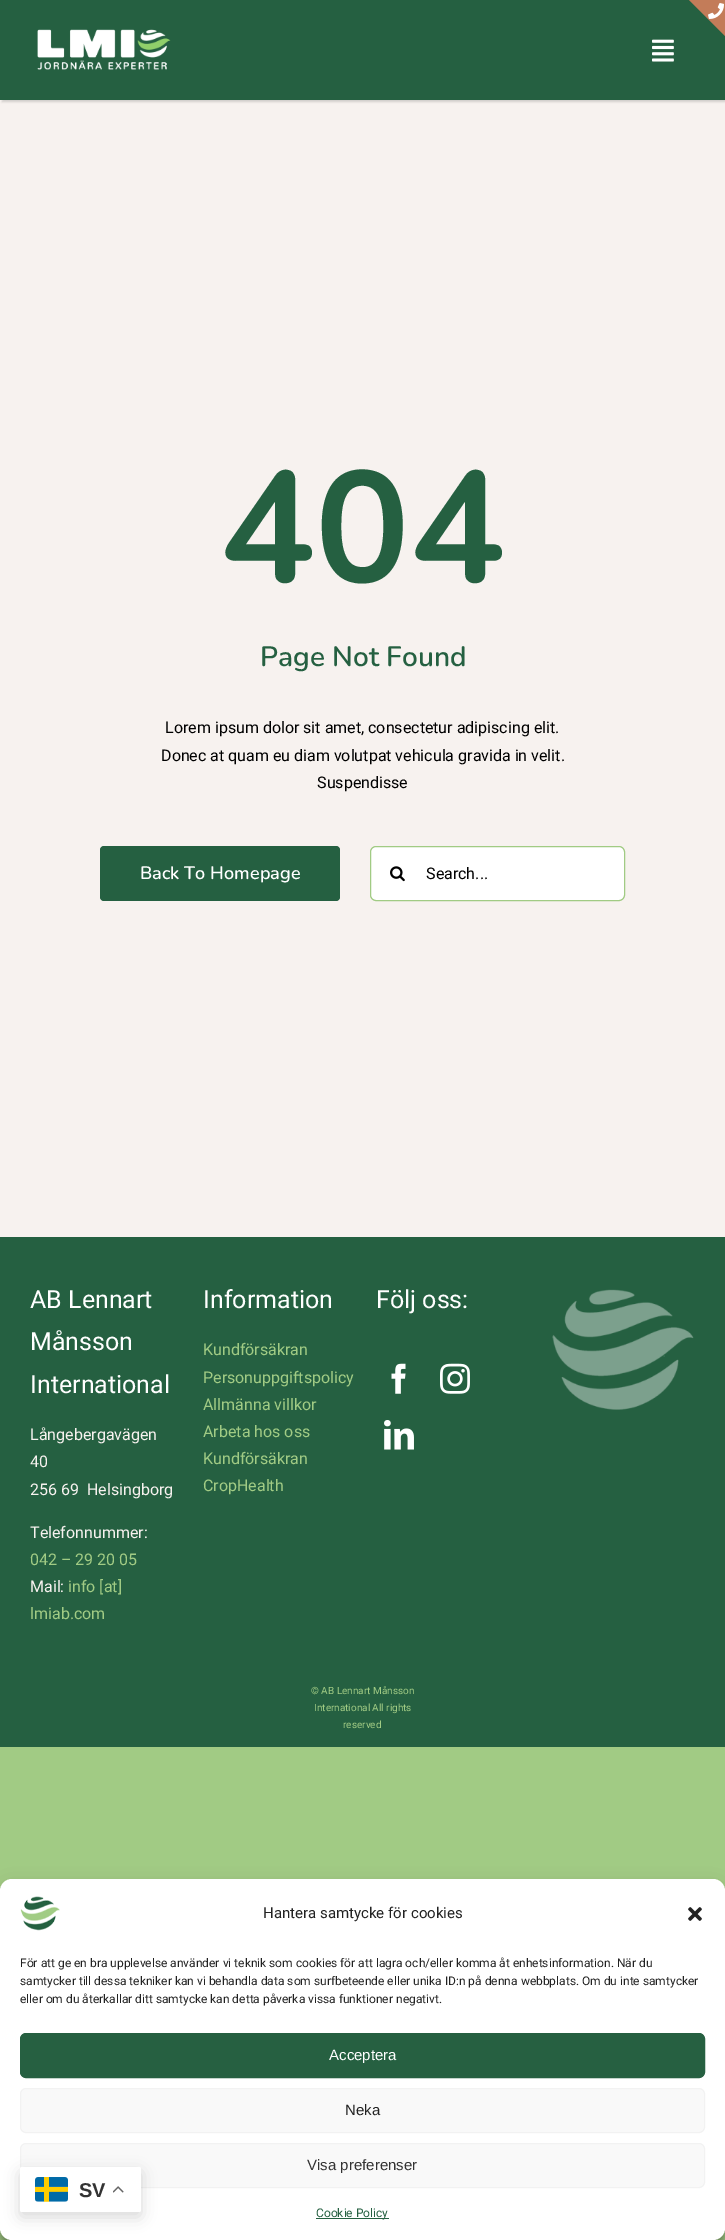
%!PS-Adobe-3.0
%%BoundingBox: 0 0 725 2240
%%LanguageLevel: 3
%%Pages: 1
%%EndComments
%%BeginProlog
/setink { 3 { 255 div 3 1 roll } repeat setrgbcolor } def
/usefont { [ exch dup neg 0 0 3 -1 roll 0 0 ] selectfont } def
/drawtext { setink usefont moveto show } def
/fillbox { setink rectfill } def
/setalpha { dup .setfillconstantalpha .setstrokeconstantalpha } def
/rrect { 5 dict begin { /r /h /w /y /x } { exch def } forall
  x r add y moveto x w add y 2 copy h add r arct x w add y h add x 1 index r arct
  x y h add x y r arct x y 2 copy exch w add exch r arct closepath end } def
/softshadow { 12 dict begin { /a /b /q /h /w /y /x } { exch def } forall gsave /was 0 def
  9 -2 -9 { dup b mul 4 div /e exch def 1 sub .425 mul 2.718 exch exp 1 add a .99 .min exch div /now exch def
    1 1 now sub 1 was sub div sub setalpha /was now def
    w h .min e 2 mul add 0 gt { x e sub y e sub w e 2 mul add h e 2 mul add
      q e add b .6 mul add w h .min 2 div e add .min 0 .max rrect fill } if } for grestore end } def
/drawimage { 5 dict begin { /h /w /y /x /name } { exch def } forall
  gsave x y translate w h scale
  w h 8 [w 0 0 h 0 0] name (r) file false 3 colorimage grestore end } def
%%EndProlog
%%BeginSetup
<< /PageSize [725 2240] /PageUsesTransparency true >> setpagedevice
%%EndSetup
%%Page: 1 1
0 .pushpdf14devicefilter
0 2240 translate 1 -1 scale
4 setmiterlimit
0 0 725 2240 161 203 132 fillbox
0 100 725 1137 247 242 239 fillbox
43 43 43 setink
2 2 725 100 0 1 0.18 softshadow
0 0 725 100 37 96 65 fillbox
(assets/img1.rgb) 37 29 134 41 drawimage
(assets/img2.rgb) 652 39 22 23 drawimage
195 124 89 setink
689 0 moveto 725 0 lineto 725 36 lineto closepath fill
(assets/img3.rgb) 708 3 16 16 drawimage
(404) 220 582 /Nunito-Bold 158 37 96 65 drawtext
(Page Not Found) 260 666 /Nunito-SemiBold 28 37 96 65 drawtext
(Lorem ipsum dolor sit amet, consectetur adipiscing elit.) 165 733 /Roboto-Regular 16 0 0 0 drawtext
(Donec at quam eu diam volutpat vehicula gravida in velit.) 161 761 /Roboto-Regular 16 0 0 0 drawtext
(Suspendisse) 317 788 /Roboto-Regular 16 0 0 0 drawtext
37 96 65 setink
100 846 240 55 4 rrect fill
(Back To Homepage) 140 879 /Nunito-SemiBold 18 255 255 255 drawtext
370.5 846.5 254 54 5.5 rrect gsave fill grestore
161 203 132 setink
stroke
(assets/img4.rgb) 390 866 15 16 drawimage
(Search...) 426 879 /Roboto-Regular 16 0 0 0 drawtext
0 1237 725 510 37 96 65 fillbox
(AB Lennart) 30 1308 /Roboto-Regular 25 255 255 255 drawtext
(Månsson) 30 1350 /Roboto-Regular 25 255 255 255 drawtext
(International) 30 1393 /Roboto-Regular 25 255 255 255 drawtext
(Långebergavägen) 30 1440 /Roboto-Regular 16 247 242 239 drawtext
(40) 30 1467 /Roboto-Regular 16 247 242 239 drawtext
(256 69  Helsingborg) 30 1495 /Roboto-Regular 16 247 242 239 drawtext
(Telefonnummer:) 30 1538 /Roboto-Regular 16 247 242 239 drawtext
(042 – 29 20 05) 30 1565 /Roboto-Regular 16 161 203 132 drawtext
(Mail:) 30 1592 /Roboto-Regular 16 247 242 239 drawtext
(info [at]) 68 1592 /Roboto-Regular 16 161 203 132 drawtext
(lmiab.com) 30 1619 /Roboto-Regular 16 161 203 132 drawtext
(Information) 203 1308 /Roboto-Regular 25 255 255 255 drawtext
(Kundförsäkran) 203 1355 /Roboto-Regular 16 161 203 132 drawtext
(Personuppgiftspolicy) 203 1383 /Roboto-Regular 16 161 203 132 drawtext
(Allmänna villkor) 203 1410 /Roboto-Regular 16 161 203 132 drawtext
(Arbeta hos oss) 203 1437 /Roboto-Regular 16 161 203 132 drawtext
(Kundförsäkran) 203 1464 /Roboto-Regular 16 161 203 132 drawtext
(CropHealth) 203 1491 /Roboto-Regular 16 161 203 132 drawtext
(Följ oss:) 376 1308 /Roboto-Regular 25 255 255 255 drawtext
(assets/img5.rgb) 391 1363 15 31 drawimage
(assets/img6.rgb) 440 1363 30 31 drawimage
(assets/img7.rgb) 384 1420 30 30 drawimage
(assets/img8.rgb) 552 1289 142 121 drawimage
(© AB Lennart Månsson) 311 1694 /Roboto-Regular 10 161 203 132 drawtext
(International All rights) 314 1711 /Roboto-Regular 10 161 203 132 drawtext
(reserved) 343 1728 /Roboto-Regular 10 161 203 132 drawtext
0 0 0 setink
0 1885 725 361 12 3 0.23 softshadow
0 1889 725 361 12 10 0.19 softshadow
128 128 128 setink
655 2166 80 60 2 2.5 1 softshadow
255 255 255 setink
0 1879 725 361 12 rrect fill
(assets/img9.rgb) 20 1896 40 35 drawimage
(Hantera samtycke för cookies) 263 1918 /Roboto-Regular 15 34 34 34 drawtext
(assets/img10.rgb) 688 1907 14 14 drawimage
(För att ge en bra upplevelse använder vi teknik som cookies för att lagra och/eller komma åt enhetsinformation. När du) 20 1967 /Roboto-Regular 12 34 34 34 drawtext
(samtycker till dessa tekniker kan vi behandla data som surfbeteende eller unika ID:n på denna webbplats. Om du inte samtycker) 20 1985 /Roboto-Regular 12 34 34 34 drawtext
(eller om du återkallar ditt samtycke kan detta påverka vissa funktioner negativt.) 20 2003 /Roboto-Regular 12 34 34 34 drawtext
38 96 65 setink
20.5 2033.5 684 44 5.5 rrect gsave fill grestore
stroke
(Acceptera) 329 2060 /LiberationSans-Regular 15 255 255 255 drawtext
249 249 249 setink
20.5 2088.5 684 44 5.5 rrect gsave fill grestore
242 242 242 setink
stroke
(Neka) 345 2115 /LiberationSans-Regular 15 34 34 34 drawtext
249 249 249 setink
20.5 2143.5 684 44 5.5 rrect gsave fill grestore
242 242 242 setink
stroke
(Visa preferenser) 307 2170 /LiberationSans-Regular 15 51 51 51 drawtext
316 2218 73 1 38 96 65 fillbox
(Cookie Policy) 316 2217 /Roboto-Regular 12 37 96 65 drawtext
0 0 0 setink
20 2172 121 45 2 7.5 0.15 softshadow
255 255 255 setink
20 2167 121 45 2 rrect fill
(assets/img11.rgb) 35 2177 33 25 drawimage
(SV) 79 2197 /LiberationSans-Bold 20 51 51 51 drawtext
(assets/img12.rgb) 113 2186 11 7 drawimage
.poppdf14devicefilter showpage
%%EOF
